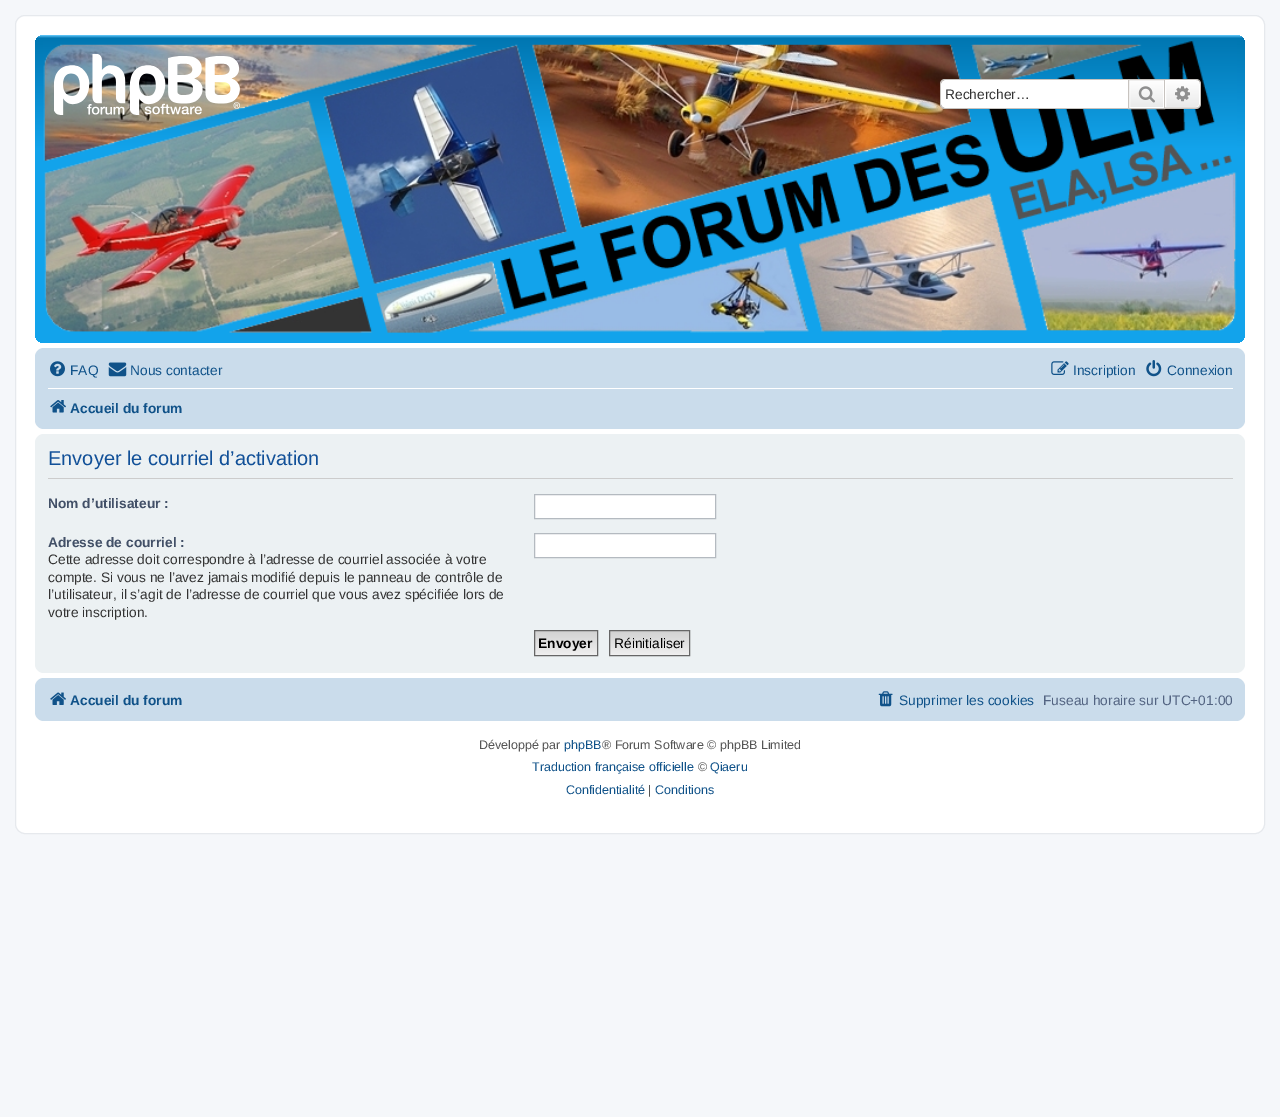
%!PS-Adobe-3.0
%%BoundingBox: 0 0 1280 1117
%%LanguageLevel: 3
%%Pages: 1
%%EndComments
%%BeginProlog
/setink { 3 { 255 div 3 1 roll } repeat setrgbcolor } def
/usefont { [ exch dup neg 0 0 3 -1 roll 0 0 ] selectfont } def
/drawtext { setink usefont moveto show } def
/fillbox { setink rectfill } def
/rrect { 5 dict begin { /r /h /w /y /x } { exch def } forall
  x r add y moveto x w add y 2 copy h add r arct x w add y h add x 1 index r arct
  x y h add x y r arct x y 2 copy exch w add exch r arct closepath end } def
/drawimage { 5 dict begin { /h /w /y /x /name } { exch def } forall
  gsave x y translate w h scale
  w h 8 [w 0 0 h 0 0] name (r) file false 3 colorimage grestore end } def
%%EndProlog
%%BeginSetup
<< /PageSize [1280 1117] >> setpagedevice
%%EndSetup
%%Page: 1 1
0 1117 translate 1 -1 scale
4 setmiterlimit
0 0 1280 1117 245 247 250 fillbox
255 255 255 setink
15.5 15.5 1249 818 9.5 rrect gsave fill grestore
230 233 237 setink
stroke
gsave 35 35 1210 308 9 rrect clip newpath
<< /ShadingType 2 /ColorSpace /DeviceRGB /Coords [640 35 640 343] /Extend [true true] /Function << /FunctionType 3 /Domain [0 1] /Functions [<< /FunctionType 2 /Domain [0 1] /C0 [0.416 0.808 1] /C1 [0 0.463 0.694] /N 1 >> << /FunctionType 2 /Domain [0 1] /C0 [0 0.463 0.694] /C1 [0.071 0.639 0.922] /N 1 >> << /FunctionType 2 /Domain [0 1] /C0 [0.071 0.639 0.922] /C1 [0.071 0.639 0.922] /N 1 >>] /Bounds [0.01 0.37] /Encode [0 1 0 1 0 1] >> >> shfill grestore
(assets/img1.rgb) 43 41 1194 292 drawimage
(assets/img2.rgb) 54 54 186 61 drawimage
255 255 255 setink
945 80 moveto 1128 80 lineto 1128 108 lineto 945 108 lineto 943 108 941 106 941 104 curveto 941 84 lineto 941 82 943 80 945 80 curveto closepath fill
199 195 191 setink
945 79 moveto 1128 79 lineto 1128 109 lineto 945 109 lineto 942 109 940 107 940 104 curveto 940 84 lineto 940 81 942 79 945 79 curveto closepath 945 80 moveto 1128 80 lineto 1128 108 lineto 945 108 lineto 943 108 941 106 941 104 curveto 941 84 lineto 941 82 943 80 945 80 curveto closepath eofill
(Rechercher…) 945 99 /LiberationSans-Regular 13.75 51 51 51 drawtext
gsave 1130 81 moveto 1163 81 lineto 1163 107 lineto 1130 107 lineto closepath clip newpath
<< /ShadingType 2 /ColorSpace /DeviceRGB /Coords [1146 80 1146 108] /Extend [true true] /Function << /FunctionType 2 /Domain [0 1] /C0 [1 1 1] /C1 [0.914 0.914 0.914] /N 1 >> >> shfill grestore
255 255 255 setink
1129.5 80.5 34 27 rectstroke
199 195 191 setink
1128.5 79.5 36 29 rectstroke
(assets/img3.rgb) 1138 86 17 17 drawimage
gsave 1165.5 80.5 moveto 1196 80.5 lineto 1198 80.5 1199.5 82 1199.5 84 curveto 1199.5 104 lineto 1199.5 106 1198 107.5 1196 107.5 curveto 1165.5 107.5 lineto closepath clip newpath
<< /ShadingType 2 /ColorSpace /DeviceRGB /Coords [1183 80 1183 108] /Extend [true true] /Function << /FunctionType 2 /Domain [0 1] /C0 [1 1 1] /C1 [0.914 0.914 0.914] /N 1 >> >> shfill grestore
255 255 255 setink
1165.5 80.5 moveto 1196 80.5 lineto 1198 80.5 1199.5 82 1199.5 84 curveto 1199.5 104 lineto 1199.5 106 1198 107.5 1196 107.5 curveto 1165.5 107.5 lineto closepath stroke
199 195 191 setink
1165 79 moveto 1196 79 lineto 1199 79 1201 81 1201 84 curveto 1201 104 lineto 1201 106.5 1199 109 1196 109 curveto 1165 109 lineto closepath 1165 80 moveto 1196 80 lineto 1198.5 80 1200 81.5 1200 84 curveto 1200 104 lineto 1200 106 1198.5 107.5 1196 107.5 curveto 1165 107.5 lineto closepath eofill
(assets/img4.rgb) 1175 86 15 16 drawimage
202 220 235 setink
35 348 1210 81 9 rrect fill
(assets/img5.rgb) 50 361 15 16 drawimage
(FAQ) 70 375 /LiberationSans-Regular 13.75 16 82 137 drawtext
(assets/img6.rgb) 108 362 19 15 drawimage
(Nous contacter) 130 375 /LiberationSans-Regular 13.75 16 82 137 drawtext
(assets/img7.rgb) 1051 361 18 14 drawimage
(Inscription) 1073 375 /LiberationSans-Regular 13.75 16 82 137 drawtext
(assets/img8.rgb) 1146 360 16 17 drawimage
(Connexion) 1167 375 /LiberationSans-Regular 13.75 16 82 137 drawtext
48 388 1185 1 255 255 255 fillbox
(assets/img9.rgb) 50 400 16 13 drawimage
(Accueil du forum) 70 413 /LiberationSans-Bold 13.75 16 82 137 drawtext
236 241 243 setink
35 434 1210 239 9 rrect fill
48 478 1185 1 204 204 204 fillbox
(Envoyer le courriel d’activation) 48 465 /LiberationSans-Regular 20 17 80 152 drawtext
(Nom d’utilisateur :) 48 508 /LiberationSans-Bold 13.75 66 80 103 drawtext
255 255 255 setink
534.5 494.5 moveto 715.5 494.5 lineto 715.5 518.5 lineto 534.5 518.5 lineto closepath gsave fill grestore
180 186 192 setink
stroke
(Adresse de courriel :) 48 547 /LiberationSans-Bold 13.75 66 80 103 drawtext
(Cette adresse doit correspondre à l’adresse de courriel associée à votre) 48 564 /LiberationSans-Regular 13.75 51 51 51 drawtext
(compte. Si vous ne l’avez jamais modifié depuis le panneau de contrôle de) 48 582 /LiberationSans-Regular 13.75 51 51 51 drawtext
(l’utilisateur, il s’agit de l’adresse de courriel que vous avez spécifiée lors de) 48 599 /LiberationSans-Regular 13.75 51 51 51 drawtext
(votre inscription.) 48 617 /LiberationSans-Regular 13.75 51 51 51 drawtext
255 255 255 setink
534.5 533.5 moveto 715.5 533.5 lineto 715.5 557.5 lineto 534.5 557.5 lineto closepath gsave fill grestore
180 186 192 setink
stroke
gsave 535 631 moveto 597 631 lineto 597 655 lineto 535 655 lineto closepath clip newpath
<< /ShadingType 2 /ColorSpace /DeviceRGB /Coords [566 631 566 655] /Extend [true true] /Function << /FunctionType 2 /Domain [0 1] /C0 [0.824 0.824 0.824] /C1 [0.937 0.937 0.937] /N 1 >> >> shfill grestore
102 102 102 setink
534.5 630.5 63 25 rectstroke
(Envoyer) 538 648 /LiberationSans-Bold 13.75 0 0 0 drawtext
gsave 610 631 moveto 689 631 lineto 689 655 lineto 610 655 lineto closepath clip newpath
<< /ShadingType 2 /ColorSpace /DeviceRGB /Coords [649 631 649 655] /Extend [true true] /Function << /FunctionType 2 /Domain [0 1] /C0 [0.824 0.824 0.824] /C1 [0.937 0.937 0.937] /N 1 >> >> shfill grestore
102 102 102 setink
609.5 630.5 80 25 rectstroke
(Réinitialiser) 614 648 /LiberationSans-Regular 13.75 0 0 0 drawtext
202 220 235 setink
35 678 1210 43 9 rrect fill
(assets/img10.rgb) 50 692 16 13 drawimage
(Accueil du forum) 70 705 /LiberationSans-Bold 13.75 16 82 137 drawtext
(assets/img11.rgb) 878 691 15 16 drawimage
(Supprimer les cookies) 899 705 /LiberationSans-Regular 13.75 16 82 137 drawtext
(Fuseau horaire sur UTC+01:00) 1043 705 /LiberationSans-Regular 13.75 83 100 130 drawtext
(Développé par) 479 749 /LiberationSans-Regular 12.5 85 85 85 drawtext
(phpBB) 564 749 /LiberationSans-Regular 12.5 16 82 137 drawtext
(® Forum Software © phpBB Limited) 602 749 /LiberationSans-Regular 12.5 85 85 85 drawtext
(Traduction française officielle) 532 771 /LiberationSans-Regular 12.5 16 82 137 drawtext
(©) 698 771 /LiberationSans-Regular 12.5 85 85 85 drawtext
(Qiaeru) 710 771 /LiberationSans-Regular 12.5 16 82 137 drawtext
(Confidentialité) 566 794 /LiberationSans-Regular 12.5 16 82 137 drawtext
(|) 648 794 /LiberationSans-Regular 12.5 85 85 85 drawtext
(Conditions) 655 794 /LiberationSans-Regular 12.5 16 82 137 drawtext
showpage
%%EOF
